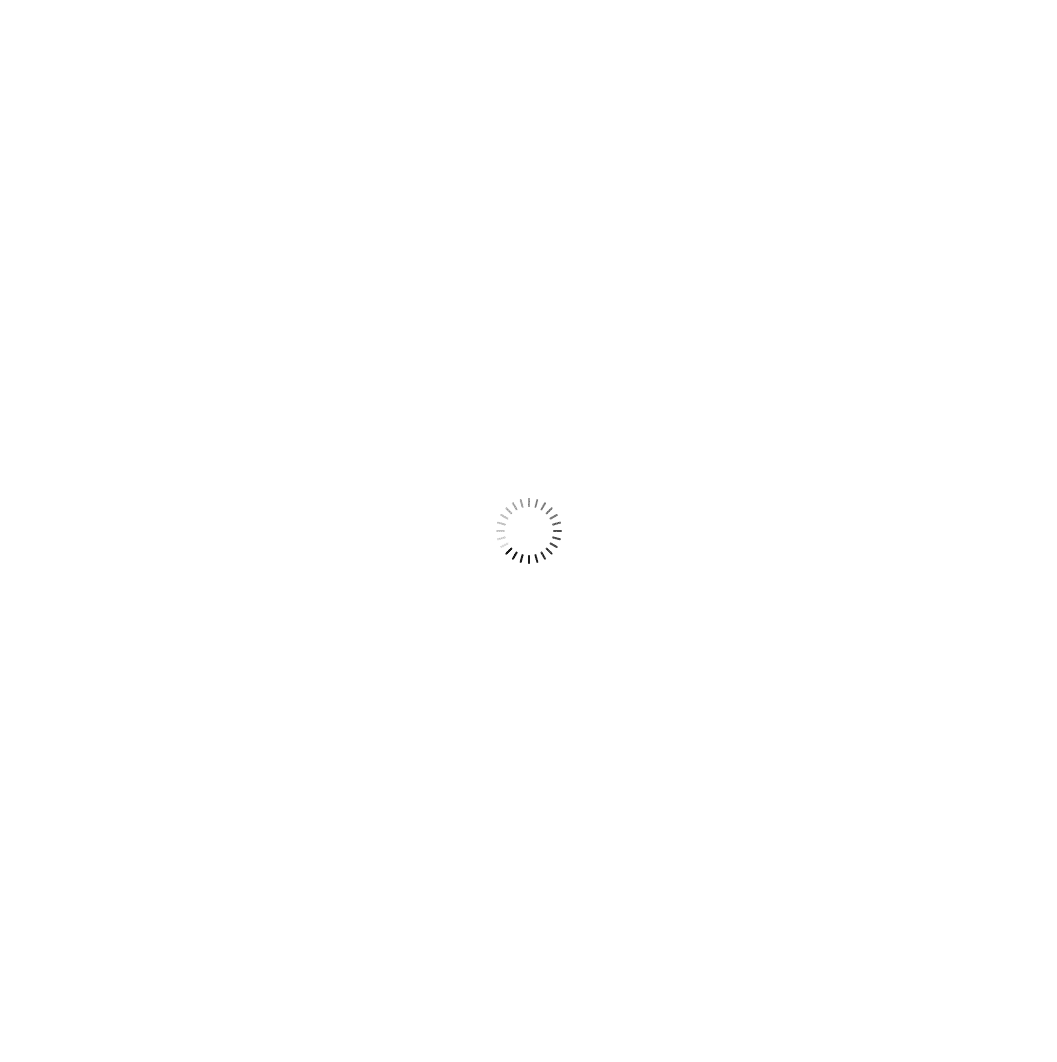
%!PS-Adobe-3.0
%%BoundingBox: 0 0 1057 1062
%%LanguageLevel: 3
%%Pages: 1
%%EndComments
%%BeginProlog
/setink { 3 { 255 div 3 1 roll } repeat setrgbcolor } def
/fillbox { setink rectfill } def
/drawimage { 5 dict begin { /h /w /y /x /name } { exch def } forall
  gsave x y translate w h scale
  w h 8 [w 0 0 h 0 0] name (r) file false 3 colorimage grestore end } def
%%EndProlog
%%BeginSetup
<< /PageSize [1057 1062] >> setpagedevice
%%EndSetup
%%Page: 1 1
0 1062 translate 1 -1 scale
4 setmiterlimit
0 0 1057 1062 255 255 255 fillbox
(assets/img1.rgb) 496 498 66 66 drawimage
showpage
%%EOF
